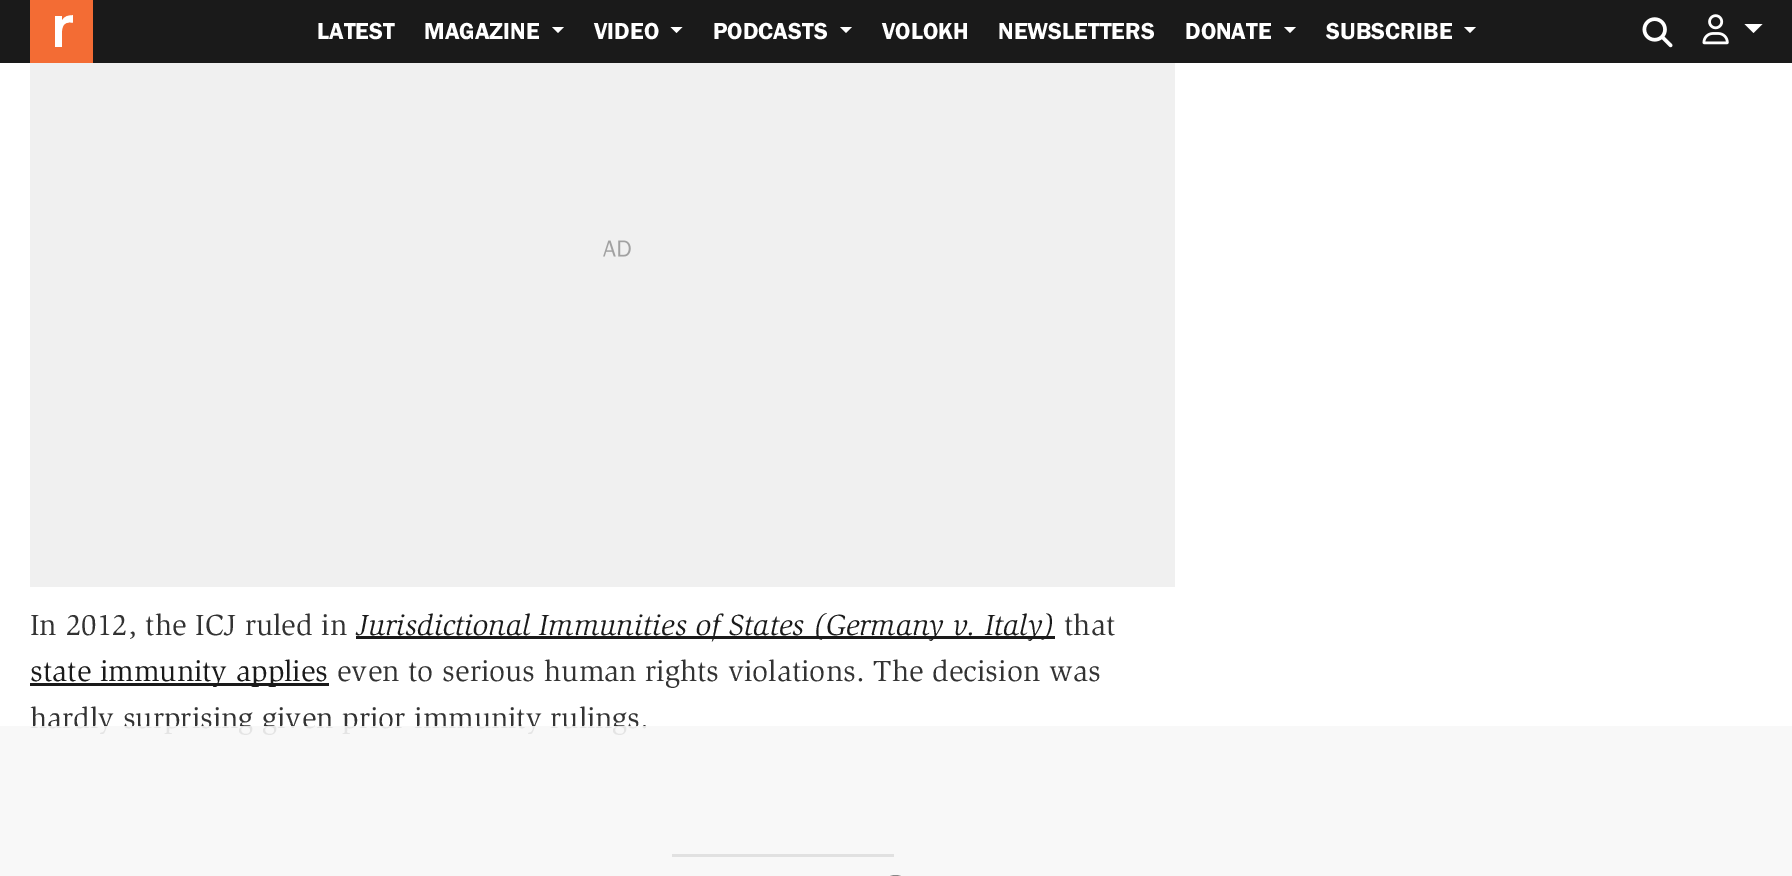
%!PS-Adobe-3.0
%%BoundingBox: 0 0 1792 876
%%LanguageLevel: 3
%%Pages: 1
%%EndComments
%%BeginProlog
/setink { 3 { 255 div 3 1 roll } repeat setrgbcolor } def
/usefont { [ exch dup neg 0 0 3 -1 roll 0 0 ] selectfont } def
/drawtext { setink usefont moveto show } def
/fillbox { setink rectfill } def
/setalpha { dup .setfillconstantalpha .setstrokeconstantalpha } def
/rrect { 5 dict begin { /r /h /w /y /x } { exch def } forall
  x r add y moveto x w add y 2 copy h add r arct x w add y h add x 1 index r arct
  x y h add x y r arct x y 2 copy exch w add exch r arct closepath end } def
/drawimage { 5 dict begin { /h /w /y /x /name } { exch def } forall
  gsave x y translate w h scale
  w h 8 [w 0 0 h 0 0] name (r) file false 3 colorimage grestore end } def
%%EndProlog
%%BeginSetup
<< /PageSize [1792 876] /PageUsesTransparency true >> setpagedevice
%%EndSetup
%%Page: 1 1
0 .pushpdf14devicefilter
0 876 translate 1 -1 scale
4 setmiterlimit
0 0 1792 876 255 255 255 fillbox
0 0 1792 63 26 26 26 fillbox
55 15 18 32 255 255 255 fillbox
gsave
30 0 63 63 rectclip
243 108 52 setink
30 0 moveto 30 64 lineto 94 64 lineto 94 0 lineto closepath 73 23 moveto 62 21 62 29 62 37 curveto 62 47 lineto 55 47 lineto 55 16 lineto 62 16 lineto 62 20 lineto 64 16 68 15 73 15 curveto closepath fill
grestore
(LATEST) 317 39 /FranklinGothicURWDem-Regular 24 255 255 255 drawtext
(MAGAZINE) 424 39 /FranklinGothicURWDem-Regular 24 255 255 255 drawtext
552 27 moveto 564 27 lineto 558 33 lineto closepath fill
(VIDEO) 594 39 /FranklinGothicURWDem-Regular 24 255 255 255 drawtext
670.5 27 moveto 682.5 27 lineto 676.5 33 lineto closepath fill
(PODCASTS) 713 39 /FranklinGothicURWDem-Regular 24 255 255 255 drawtext
840 27 moveto 852 27 lineto 846 33 lineto closepath fill
(VOLOKH) 882 39 /FranklinGothicURWDem-Regular 24 255 255 255 drawtext
(NEWSLETTERS) 998 39 /FranklinGothicURWDem-Regular 24 255 255 255 drawtext
(DONATE) 1185 39 /FranklinGothicURWDem-Regular 24 255 255 255 drawtext
1284 27 moveto 1296 27 lineto 1290 33 lineto closepath fill
(SUBSCRIBE) 1326 39 /FranklinGothicURWDem-Regular 24 255 255 255 drawtext
1464 27 moveto 1476 27 lineto 1470 33 lineto closepath fill
(assets/img1.rgb) 1642 17 31 31 drawimage
(assets/img2.rgb) 1702 14 27 31 drawimage
1744.5 24 moveto 1762.5 24 lineto 1753.5 33 lineto closepath fill
30 63 1145 524 240 240 240 fillbox
(assets/img3.rgb) 603 240 28 17 drawimage
(In 2012, the ICJ ruled in) 30 635 /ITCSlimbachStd-Regular 30 51 51 51 drawtext
356 636 699 3 26 26 26 fillbox
(Jurisdictional Immunities of States \(Germany v. Italy\)) 356 635 /ITCSlimbachStd-Italic 30 26 26 26 drawtext
(that) 1064 635 /ITCSlimbachStd-Regular 30 51 51 51 drawtext
30 683 299 3 26 26 26 fillbox
(state immunity applies) 30 681 /ITCSlimbachStd-Regular 30 26 26 26 drawtext
(even to serious human rights violations. The decision was) 337 681 /ITCSlimbachStd-Regular 30 51 51 51 drawtext
(hardly surprising given prior immunity rulings.) 30 728 /ITCSlimbachStd-Regular 30 51 51 51 drawtext
672 854 222 3 26 26 26 fillbox
0.9 setalpha
0 726 1792 150 247 247 247 fillbox
1 setalpha
136 136 136 setink
2 setlinewidth
880 876 31 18 15.5 rrect stroke
.poppdf14devicefilter showpage
%%EOF
